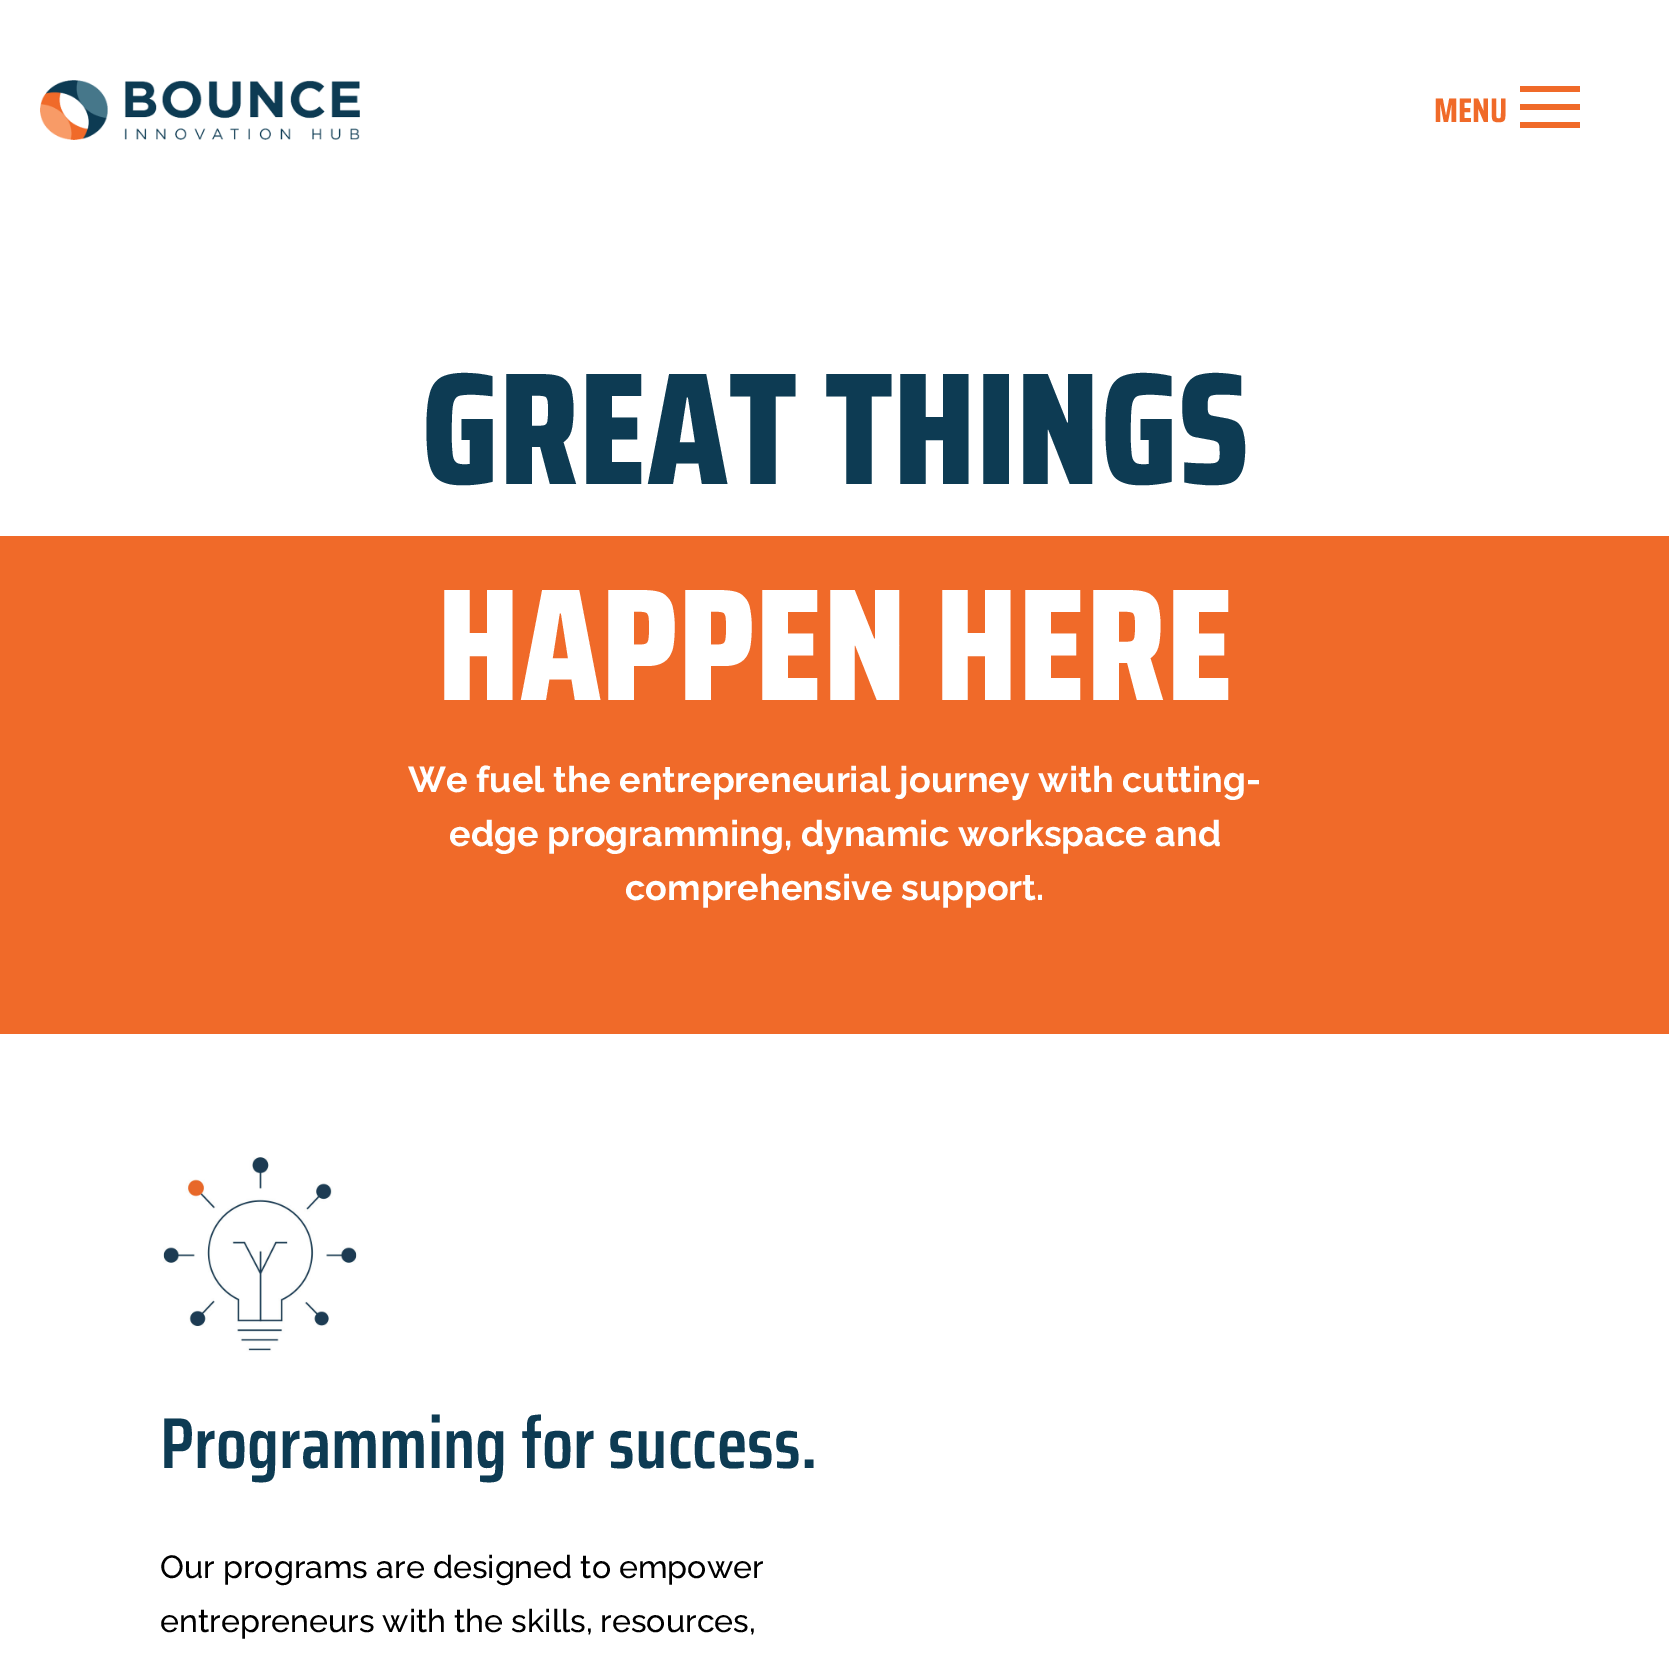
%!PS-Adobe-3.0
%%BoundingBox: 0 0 1669 1676
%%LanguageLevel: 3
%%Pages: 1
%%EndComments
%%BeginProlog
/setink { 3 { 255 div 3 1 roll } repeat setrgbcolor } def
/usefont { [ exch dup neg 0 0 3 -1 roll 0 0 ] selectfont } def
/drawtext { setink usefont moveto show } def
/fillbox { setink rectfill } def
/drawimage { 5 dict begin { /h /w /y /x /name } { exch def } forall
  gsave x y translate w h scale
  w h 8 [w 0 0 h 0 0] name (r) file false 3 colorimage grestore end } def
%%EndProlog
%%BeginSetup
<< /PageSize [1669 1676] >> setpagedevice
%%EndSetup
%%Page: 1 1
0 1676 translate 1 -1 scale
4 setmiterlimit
0 0 1669 1676 255 255 255 fillbox
(MENU) 1434 122 /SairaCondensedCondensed-Bold 34 240 106 41 drawtext
1520 86 60 6 240 106 41 fillbox
1520 104 60 6 240 106 41 fillbox
1520 122 60 6 240 106 41 fillbox
(assets/img1.rgb) 40 80 320 60 drawimage
(GREAT THINGS) 421 484 /SairaCondensed-ExtraBold 160 13 59 83 drawtext
0 536 1669 498 240 106 41 fillbox
(HAPPEN HERE) 437 700 /SairaCondensed-ExtraBold 160 255 255 255 drawtext
(We fuel the entrepreneurial journey with cutting-) 408 792 /Raleway-Bold 36 255 255 255 drawtext
(edge programming, dynamic workspace and) 449 846 /Raleway-Bold 36 255 255 255 drawtext
(comprehensive support.) 625 900 /Raleway-Bold 36 255 255 255 drawtext
(assets/img2.rgb) 163 1157 195 195 drawimage
(Programming for success.) 160 1468 /SairaCondensed-SemiBold 72 13 59 83 drawtext
(Our programs are designed to empower) 160 1578 /Raleway-Medium 32 0 0 0 drawtext
(entrepreneurs with the skills, resources,) 160 1632 /Raleway-Medium 32 0 0 0 drawtext
showpage
%%EOF
